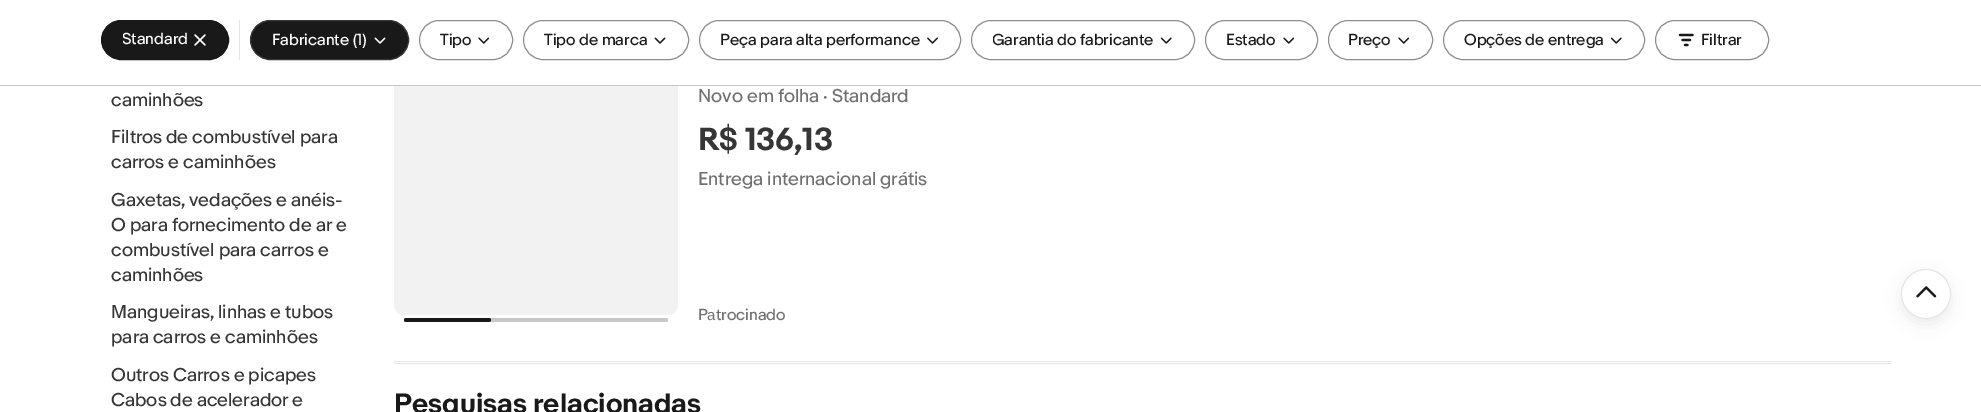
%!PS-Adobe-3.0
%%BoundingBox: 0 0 1981 412
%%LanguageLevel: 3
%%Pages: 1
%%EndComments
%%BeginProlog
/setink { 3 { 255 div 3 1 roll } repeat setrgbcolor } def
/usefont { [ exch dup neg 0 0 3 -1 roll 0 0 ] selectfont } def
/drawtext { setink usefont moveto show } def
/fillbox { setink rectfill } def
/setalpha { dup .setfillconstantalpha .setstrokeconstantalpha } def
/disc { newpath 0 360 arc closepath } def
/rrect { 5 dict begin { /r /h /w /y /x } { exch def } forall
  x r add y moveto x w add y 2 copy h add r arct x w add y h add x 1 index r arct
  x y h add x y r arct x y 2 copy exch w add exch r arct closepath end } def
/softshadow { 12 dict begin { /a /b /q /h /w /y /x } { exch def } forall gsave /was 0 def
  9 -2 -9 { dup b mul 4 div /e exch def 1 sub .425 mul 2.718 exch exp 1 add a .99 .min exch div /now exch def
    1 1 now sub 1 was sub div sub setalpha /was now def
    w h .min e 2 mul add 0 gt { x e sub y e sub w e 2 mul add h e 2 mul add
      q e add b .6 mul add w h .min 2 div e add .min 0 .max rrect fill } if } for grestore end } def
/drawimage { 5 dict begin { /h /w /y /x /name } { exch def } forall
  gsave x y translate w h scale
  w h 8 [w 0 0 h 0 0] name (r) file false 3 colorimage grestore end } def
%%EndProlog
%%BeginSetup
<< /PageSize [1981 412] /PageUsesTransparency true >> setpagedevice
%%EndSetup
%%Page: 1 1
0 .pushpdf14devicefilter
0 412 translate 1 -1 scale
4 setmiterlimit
0 0 1981 412 255 255 255 fillbox
242 242 242 setink
394 31 284 284 10 rrect fill
394 31 284 54 255 255 255 fillbox
0 85 1981 1 199 199 199 fillbox
239 20 1 40 229 229 229 fillbox
25 25 25 setink
101.5 20.5 127 39 19.5 rrect gsave fill grestore
stroke
gsave
123 29 70 22 rectclip
(Standard) 122 44 /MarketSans-Regular 15 255 255 255 drawtext
grestore
(assets/img1.rgb) 194 34 12 12 drawimage
250.5 20.5 158 39 19.5 rrect gsave fill grestore
54 54 54 setink
stroke
(Fabricante) 272 45 /MarketSans-Regular 15 255 255 255 drawtext
(\(1\)) 353 45 /MarketSans-Regular 15 255 255 255 drawtext
(assets/img2.rgb) 374 37 12 7 drawimage
143 143 143 setink
419.5 20.5 93 39 19.5 rrect stroke
(Tipo) 440 45 /MarketSans-Regular 15 25 25 25 drawtext
(assets/img3.rgb) 478 37 12 7 drawimage
143 143 143 setink
523.5 20.5 165 39 19.5 rrect stroke
(Tipo de marca) 544 45 /MarketSans-Regular 15 25 25 25 drawtext
(assets/img4.rgb) 654 37 12 7 drawimage
143 143 143 setink
699.5 20.5 261 39 19.5 rrect stroke
(Peça para alta performance) 720 45 /MarketSans-Regular 15 25 25 25 drawtext
(assets/img5.rgb) 927 37 11 7 drawimage
143 143 143 setink
971.5 20.5 223 39 19.5 rrect stroke
gsave
993 31 166 18 rectclip
(Garantia do fabricante) 992 45 /MarketSans-Regular 15 25 25 25 drawtext
grestore
(assets/img6.rgb) 1160 37 12 7 drawimage
1205.5 20.5 112 39 19.5 rrect stroke
(Estado) 1226 45 /MarketSans-Regular 15 25 25 25 drawtext
(assets/img3.rgb) 1283 37 12 7 drawimage
143 143 143 setink
1328.5 20.5 104 39 19.5 rrect stroke
(Preço) 1348 45 /MarketSans-Regular 15 25 25 25 drawtext
(assets/img3.rgb) 1398 37 12 7 drawimage
143 143 143 setink
1443.5 20.5 201 39 19.5 rrect stroke
(Opções de entrega) 1464 45 /MarketSans-Regular 15 25 25 25 drawtext
(assets/img6.rgb) 1610 37 12 7 drawimage
143 143 143 setink
1655.5 20.5 113 39 19.5 rrect stroke
(assets/img7.rgb) 1678 33 16 14 drawimage
(Filtrar) 1701 45 /MarketSans-Regular 15 25 25 25 drawtext
394 363 1497 1 229 229 229 fillbox
394 361 1497 1 229 229 229 fillbox
199 199 199 setink
404 318 264 4 2 rrect fill
25 25 25 setink
404 318 87 4 2 rrect fill
(Novo em folha · Standard) 698 102 /MarketSans-Regular 17.5 112 112 112 drawtext
(R$ 136,13) 698 150 /MarketSans-Bold 30 54 54 54 drawtext
(Entrega internacional grátis) 698 185 /MarketSans-Regular 17.5 112 112 112 drawtext
(P) 698 320 /MarketSans-Regular 15 112 112 112 drawtext
(а) 707 320 /LiberationSans-Regular 15 112 112 112 drawtext
(trocinado) 716 320 /MarketSans-Regular 15 112 112 112 drawtext
(Pesquisas relacionadas) 394 413 /MarketSans-Bold 26.25 25 25 25 drawtext
(caminhões) 111 106 /MarketSans-Regular 17.5 54 54 54 drawtext
(Filtros de combustível para) 111 143 /MarketSans-Regular 17.5 54 54 54 drawtext
(carros e caminhões) 111 168 /MarketSans-Regular 17.5 54 54 54 drawtext
(Gaxetas, vedações e anéis-) 111 206 /MarketSans-Regular 17.5 54 54 54 drawtext
(O para fornecimento de ar e) 111 231 /MarketSans-Regular 17.5 54 54 54 drawtext
(combustível para carros e) 111 256 /MarketSans-Regular 17.5 54 54 54 drawtext
(caminhões) 111 281 /MarketSans-Regular 17.5 54 54 54 drawtext
(Mangueiras, linhas e tubos) 111 318 /MarketSans-Regular 17.5 54 54 54 drawtext
(para carros e caminhões) 111 343 /MarketSans-Regular 17.5 54 54 54 drawtext
(Outros Carros e picapes) 111 381 /MarketSans-Regular 17.5 54 54 54 drawtext
(Cabos de acelerador e) 111 406 /MarketSans-Regular 17.5 54 54 54 drawtext
0 0 0 setink
1901 274 50 50 25 7.5 0.07 softshadow
255 255 255 setink
1926 294 24.5 disc gsave fill grestore
229 229 229 setink
stroke
(assets/img8.rgb) 1916 286 21 12 drawimage
.poppdf14devicefilter showpage
%%EOF
